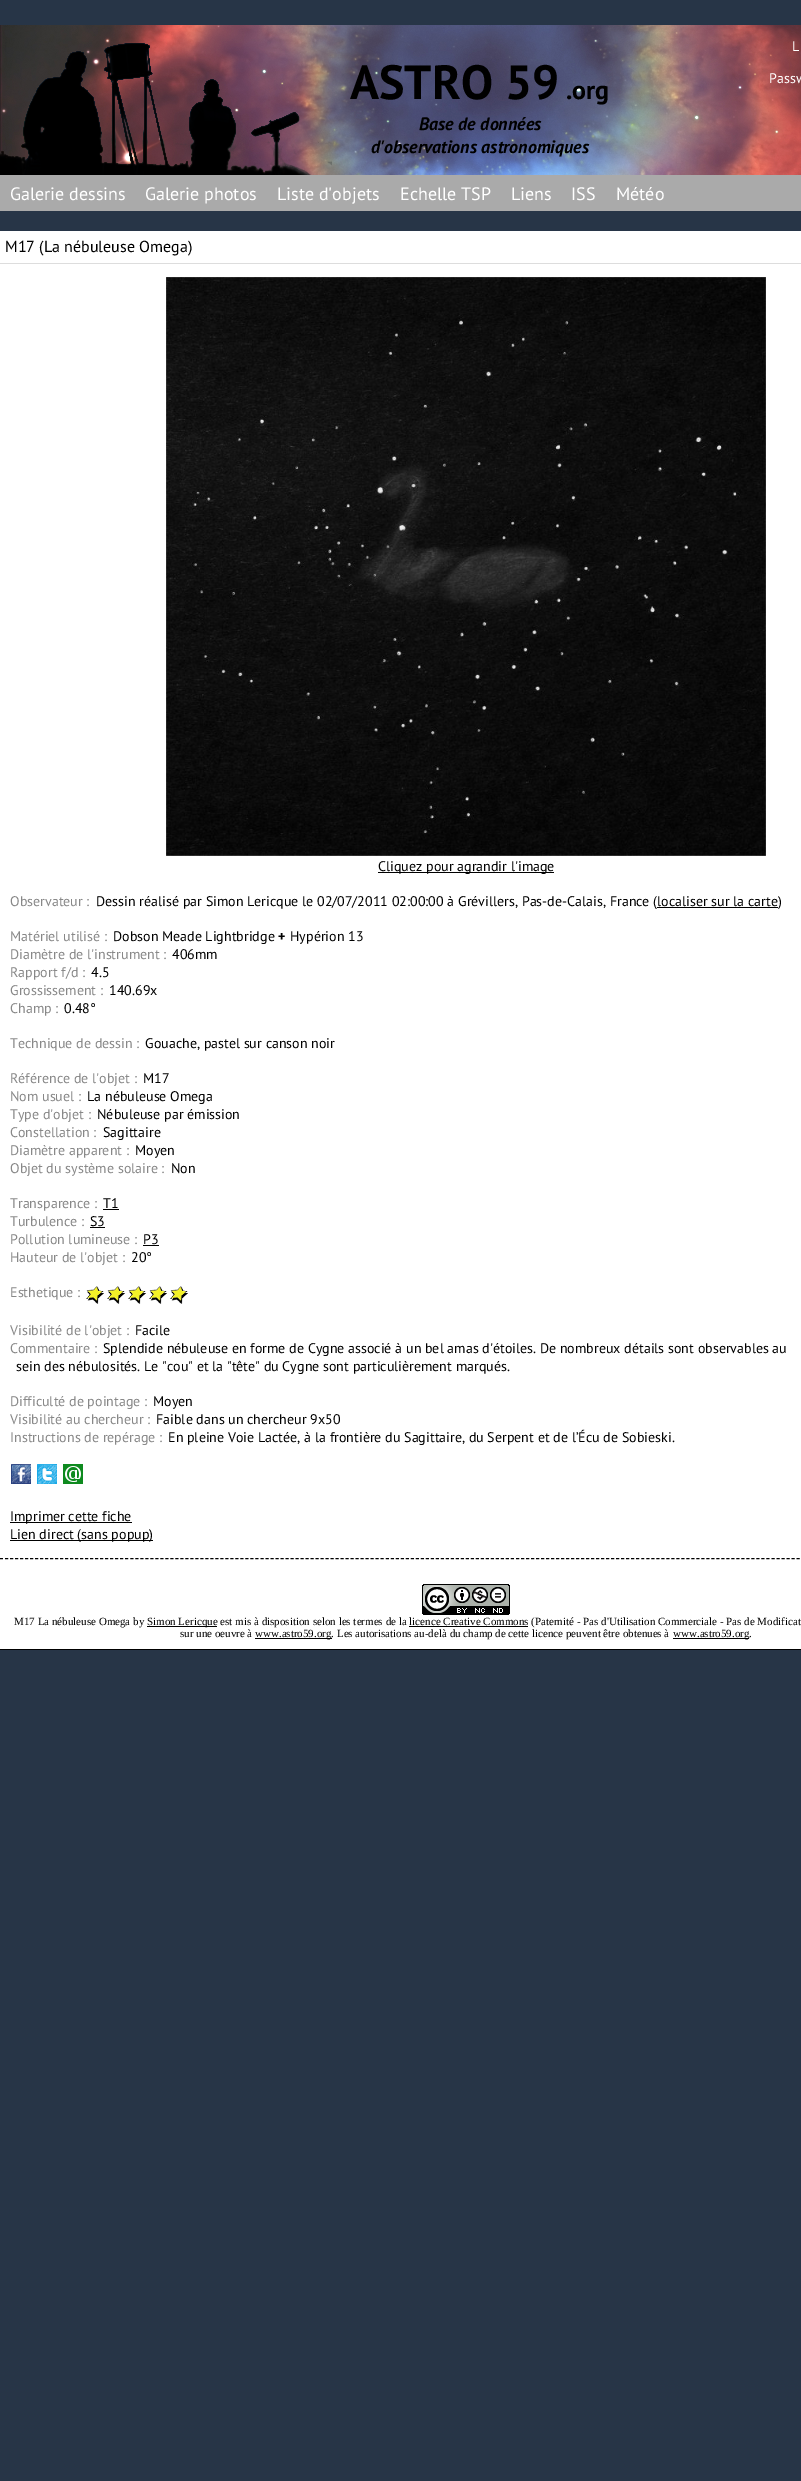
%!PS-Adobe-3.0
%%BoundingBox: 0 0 801 2481
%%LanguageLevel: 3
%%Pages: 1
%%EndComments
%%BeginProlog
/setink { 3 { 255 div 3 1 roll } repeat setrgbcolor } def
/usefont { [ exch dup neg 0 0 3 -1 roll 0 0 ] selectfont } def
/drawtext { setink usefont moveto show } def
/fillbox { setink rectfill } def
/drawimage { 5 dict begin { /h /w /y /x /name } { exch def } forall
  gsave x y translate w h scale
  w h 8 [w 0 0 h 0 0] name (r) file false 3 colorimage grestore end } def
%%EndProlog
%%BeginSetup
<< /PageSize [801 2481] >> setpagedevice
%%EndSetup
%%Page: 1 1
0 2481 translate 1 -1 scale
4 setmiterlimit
0 0 801 2481 39 53 71 fillbox
(assets/img1.rgb) 0 25 801 150 drawimage
(ASTRO 59) 350 99 /PTSans-Bold 48 0 0 0 drawtext
(.org) 566 99 /PTSans-Bold 26 0 0 0 drawtext
(Base de données) 419 130 /PTSans-BoldItalic 18 0 0 0 drawtext
(d'observations astronomiques) 371 153 /PTSans-BoldItalic 18 0 0 0 drawtext
(L) 792 51 /PTSans-Regular 14 255 255 255 drawtext
(Passw) 769 83 /PTSans-Regular 14 255 255 255 drawtext
0 175 801 36 170 170 170 fillbox
(Galerie dessins) 10 200 /PTSans-Regular 18 255 255 255 drawtext
(Galerie photos) 145 200 /PTSans-Regular 18 255 255 255 drawtext
(Liste d'objets) 277 200 /PTSans-Regular 18 255 255 255 drawtext
(Echelle TSP) 400 200 /PTSans-Regular 18 255 255 255 drawtext
(Liens) 511 200 /PTSans-Regular 18 255 255 255 drawtext
(ISS) 571 200 /PTSans-Regular 18 255 255 255 drawtext
(Météo) 616 200 /PTSans-Regular 18 255 255 255 drawtext
0 231 801 32 255 255 255 fillbox
0 263 801 1 221 221 221 fillbox
(M17 \(La nébuleuse Omega\)) 5 252 /PTSans-Regular 16 0 0 0 drawtext
0 264 801 1385 255 255 255 fillbox
0 1649 801 1 0 0 0 fillbox
(assets/img2.rgb) 166 277 600 579 drawimage
378 872 176 1 0 0 0 fillbox
(Cliquez pour agrandir l'image) 378 871 /PTSans-Regular 14 0 0 0 drawtext
(Observateur :) 10 906 /PTSans-Regular 14 136 136 136 drawtext
(Dessin réalisé par Simon Lericque le 02/07/2011 02:00:00 à Grévillers, Pas-de-Calais, France \(localiser sur la carte) 96 906 /PTSans-Regular 14 0 0 0 drawtext
657 907 121 1 0 0 0 fillbox
(\)) 778 906 /PTSans-Regular 14 0 0 0 drawtext
(Matériel utilisé :) 10 941 /PTSans-Regular 14 136 136 136 drawtext
(Dobson Meade Lightbridge) 113 941 /PTSans-Regular 14 0 0 0 drawtext
(+) 278 941 /PTSans-Bold 14 0 0 0 drawtext
(Hypérion 13) 290 941 /PTSans-Regular 14 0 0 0 drawtext
(Diamètre de l'instrument :) 10 959 /PTSans-Regular 14 136 136 136 drawtext
(406mm) 172 959 /PTSans-Regular 14 0 0 0 drawtext
(Rapport f/d :) 10 977 /PTSans-Regular 14 136 136 136 drawtext
(4.5) 91 977 /PTSans-Regular 14 0 0 0 drawtext
(Grossissement :) 10 995 /PTSans-Regular 14 136 136 136 drawtext
(140.69x) 109 995 /PTSans-Regular 14 0 0 0 drawtext
(Champ :) 10 1013 /PTSans-Regular 14 136 136 136 drawtext
(0.48°) 64 1013 /PTSans-Regular 14 0 0 0 drawtext
(Technique de dessin :) 10 1048 /PTSans-Regular 14 136 136 136 drawtext
(Gouache, pastel sur canson noir) 145 1048 /PTSans-Regular 14 0 0 0 drawtext
(Référence de l'objet :) 10 1083 /PTSans-Regular 14 136 136 136 drawtext
(M17) 143 1083 /PTSans-Regular 14 0 0 0 drawtext
(Nom usuel :) 10 1101 /PTSans-Regular 14 136 136 136 drawtext
(La nébuleuse Omega) 87 1101 /PTSans-Regular 14 0 0 0 drawtext
(Type d'objet :) 10 1119 /PTSans-Regular 14 136 136 136 drawtext
(Nébuleuse par émission) 97 1119 /PTSans-Regular 14 0 0 0 drawtext
(Constellation :) 10 1137 /PTSans-Regular 14 136 136 136 drawtext
(Sagittaire) 103 1137 /PTSans-Regular 14 0 0 0 drawtext
(Diamètre apparent :) 10 1155 /PTSans-Regular 14 136 136 136 drawtext
(Moyen) 135 1155 /PTSans-Regular 14 0 0 0 drawtext
(Objet du système solaire :) 10 1173 /PTSans-Regular 14 136 136 136 drawtext
(Non) 171 1173 /PTSans-Regular 14 0 0 0 drawtext
(Transparence :) 10 1208 /PTSans-Regular 14 136 136 136 drawtext
(T1) 103 1208 /PTSans-Regular 14 0 0 0 drawtext
103 1209 16 1 0 0 0 fillbox
(Turbulence :) 10 1226 /PTSans-Regular 14 136 136 136 drawtext
(S3) 90 1226 /PTSans-Regular 14 0 0 0 drawtext
90 1227 15 1 0 0 0 fillbox
(Pollution lumineuse :) 10 1244 /PTSans-Regular 14 136 136 136 drawtext
(P3) 143 1244 /PTSans-Regular 14 0 0 0 drawtext
143 1245 16 1 0 0 0 fillbox
(Hauteur de l'objet :) 10 1262 /PTSans-Regular 14 136 136 136 drawtext
(20°) 131 1262 /PTSans-Regular 14 0 0 0 drawtext
(Esthetique :) 10 1297 /PTSans-Regular 14 136 136 136 drawtext
(assets/img3.rgb) 86 1286 18 18 drawimage
(assets/img3.rgb) 107 1286 18 18 drawimage
(assets/img3.rgb) 128 1286 18 18 drawimage
(assets/img3.rgb) 149 1286 18 18 drawimage
(assets/img3.rgb) 170 1286 18 18 drawimage
(Visibilité de l'objet :) 10 1335 /PTSans-Regular 14 136 136 136 drawtext
(Facile) 135 1335 /PTSans-Regular 14 0 0 0 drawtext
(Splendide nébuleuse en forme de Cygne associé à un bel amas d'étoiles. De nombreux détails sont observables au) 103 1353 /PTSans-Regular 14 0 0 0 drawtext
(sein des nébulosités. Le "cou" et la "tête" du Cygne sont particulièrement marqués.) 16 1371 /PTSans-Regular 14 0 0 0 drawtext
(Commentaire :) 10 1353 /PTSans-Regular 14 136 136 136 drawtext
(Difficulté de pointage :) 10 1406 /PTSans-Regular 14 136 136 136 drawtext
(Moyen) 153 1406 /PTSans-Regular 14 0 0 0 drawtext
(Visibilité au chercheur :) 10 1424 /PTSans-Regular 14 136 136 136 drawtext
(Faible dans un chercheur 9x50) 156 1424 /PTSans-Regular 14 0 0 0 drawtext
(Instructions de repérage :) 10 1442 /PTSans-Regular 14 136 136 136 drawtext
(En pleine Voie Lactée, à la frontière du Sagittaire, du Serpent et de l’Écu de Sobieski.) 168 1442 /PTSans-Regular 14 0 0 0 drawtext
(assets/img4.rgb) 11 1464 20 20 drawimage
(assets/img5.rgb) 37 1464 20 20 drawimage
(assets/img6.rgb) 63 1464 20 20 drawimage
10 1522 122 1 0 0 0 fillbox
(Imprimer cette fiche) 10 1521 /PTSans-Regular 14 0 0 0 drawtext
10 1540 143 1 0 0 0 fillbox
(Lien direct \(sans popup\)) 10 1539 /PTSans-Regular 14 0 0 0 drawtext
[3 2.01] 0 setdash
0 1558.5 moveto 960 1558.5 lineto stroke
(assets/img7.rgb) 422 1584 88 31 drawimage
(M17 La nébuleuse Omega by) 14 1625 /LiberationSerif-Regular 11 0 0 0 drawtext
147 1626 70 1 0 0 0 fillbox
(Simon Lericque est mis à disposition selon les termes de la licence Creative Commons \(Paternité - Pas d'Utilisation Commerciale - Pas de Modificat) 147 1625 /LiberationSerif-Regular 11 0 0 0 drawtext
409 1626 119 1 0 0 0 fillbox
(sur une oeuvre à) 180 1637 /LiberationSerif-Regular 11 0 0 0 drawtext
255 1638 77 1 0 0 0 fillbox
(www.astro59.org. Les autorisations au-delà du champ de cette licence peuvent être obtenues à) 255 1637 /LiberationSerif-Regular 11 0 0 0 drawtext
673 1638 76 1 0 0 0 fillbox
(www.astro59.org.) 673 1637 /LiberationSerif-Regular 11 0 0 0 drawtext
showpage
%%EOF
